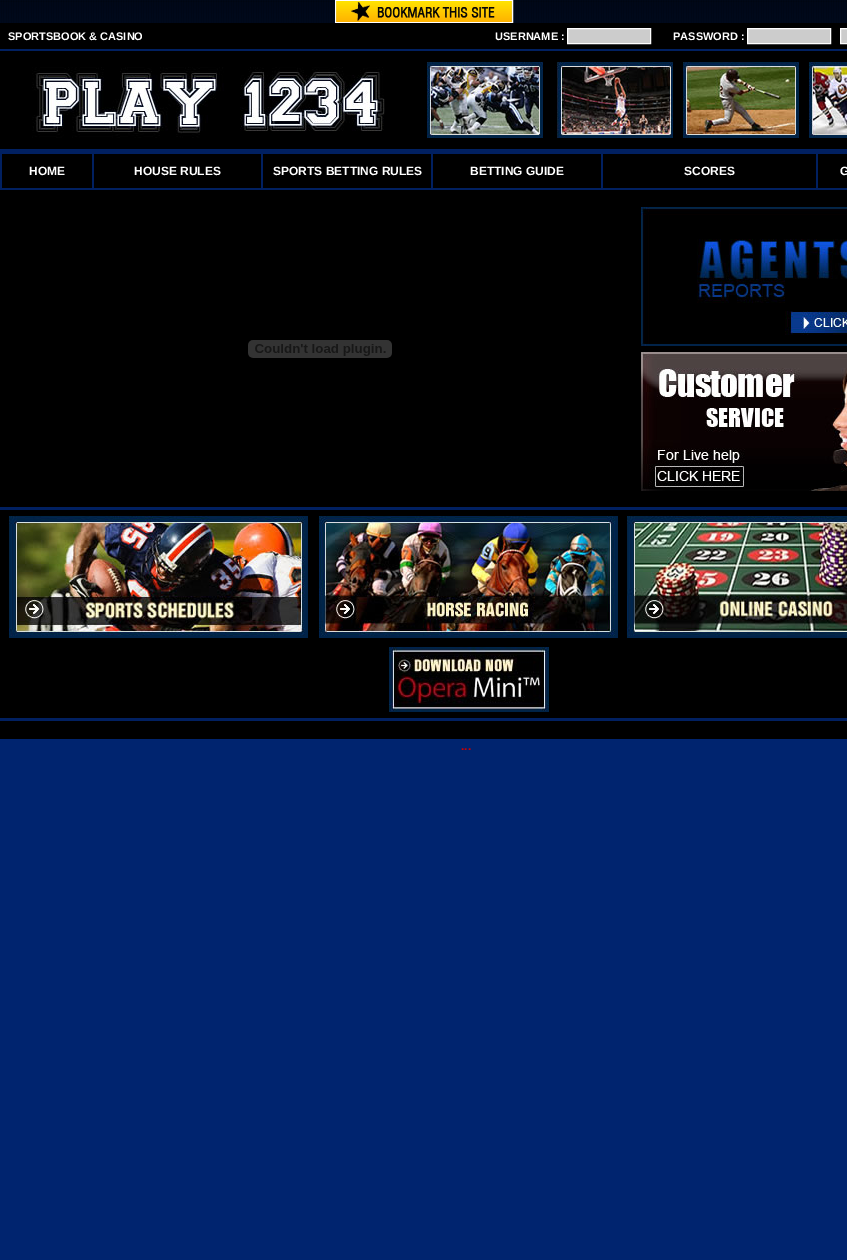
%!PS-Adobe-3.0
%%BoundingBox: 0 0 847 1260
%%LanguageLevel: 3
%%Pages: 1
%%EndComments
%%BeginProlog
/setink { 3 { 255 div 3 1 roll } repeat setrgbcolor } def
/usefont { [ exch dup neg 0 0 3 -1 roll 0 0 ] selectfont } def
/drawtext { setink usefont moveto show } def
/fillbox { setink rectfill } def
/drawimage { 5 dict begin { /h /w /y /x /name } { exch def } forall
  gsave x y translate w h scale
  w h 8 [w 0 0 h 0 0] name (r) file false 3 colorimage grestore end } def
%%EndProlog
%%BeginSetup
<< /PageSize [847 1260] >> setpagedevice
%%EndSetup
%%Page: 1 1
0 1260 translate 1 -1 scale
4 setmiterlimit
0 0 847 1260 0 36 111 fillbox
(assets/img1.rgb) 0 0 847 23 drawimage
255 255 255 setink
335.5 0.5 177 22 rectstroke
(assets/img2.rgb) 336 1 176 21 drawimage
0 23 847 26 0 0 0 fillbox
(SPORTSBOOK & CASINO) 8 40 /LiberationSans-Bold 11 255 255 255 drawtext
(USERNAME :) 495 40 /LiberationSans-Bold 11 255 255 255 drawtext
204 204 204 setink
567.5 28.5 moveto 650.5 28.5 lineto 650.5 43.5 lineto 567.5 43.5 lineto closepath gsave fill grestore
255 255 255 setink
stroke
(PASSWORD :) 673 40 /LiberationSans-Bold 11 255 255 255 drawtext
204 204 204 setink
747.5 28.5 moveto 830.5 28.5 lineto 830.5 43.5 lineto 747.5 43.5 lineto closepath gsave fill grestore
255 255 255 setink
stroke
204 204 204 setink
840.5 28.5 moveto 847.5 28.5 lineto 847.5 43.5 lineto 840.5 43.5 lineto closepath gsave fill grestore
255 255 255 setink
stroke
0 49 847 2 1 32 97 fillbox
0 51 847 98 0 0 0 fillbox
(assets/img3.rgb) 32 67 353 71 drawimage
(assets/img4.rgb) 427 62 116 76 drawimage
(assets/img5.rgb) 557 62 116 76 drawimage
(assets/img6.rgb) 683 62 116 76 drawimage
(assets/img7.rgb) 809 62 38 76 drawimage
0 149 847 41 1 32 97 fillbox
2 154 90 34 0 0 0 fillbox
(HOME) 29 175 /LiberationSans-Bold 12 255 255 255 drawtext
94 154 167 34 0 0 0 fillbox
(HOUSE RULES) 134 175 /LiberationSans-Bold 12 255 255 255 drawtext
263 154 168 34 0 0 0 fillbox
(SPORTS BETTING RULES) 273 175 /LiberationSans-Bold 12 255 255 255 drawtext
433 154 168 34 0 0 0 fillbox
(BETTING GUIDE) 470 175 /LiberationSans-Bold 12 255 255 255 drawtext
603 154 213 34 0 0 0 fillbox
(SCORES) 684 175 /LiberationSans-Bold 12 255 255 255 drawtext
818 154 29 34 0 0 0 fillbox
(G) 840 175 /LiberationSans-Bold 12 255 255 255 drawtext
0 190 847 317 0 0 0 fillbox
(assets/img8.rgb) 641 207 206 139 drawimage
(assets/img9.rgb) 248 340 144 18 drawimage
(assets/img10.rgb) 641 352 206 139 drawimage
0 507 847 3 1 32 97 fillbox
0 510 847 208 0 0 0 fillbox
(assets/img11.rgb) 9 516 299 122 drawimage
(assets/img12.rgb) 319 516 299 122 drawimage
(assets/img13.rgb) 627 516 220 122 drawimage
(assets/img14.rgb) 389 647 160 65 drawimage
0 718 847 3 1 32 97 fillbox
0 721 847 18 0 0 0 fillbox
(...) 461 750 /LiberationSans-Bold 12 204 0 0 drawtext
showpage
%%EOF
